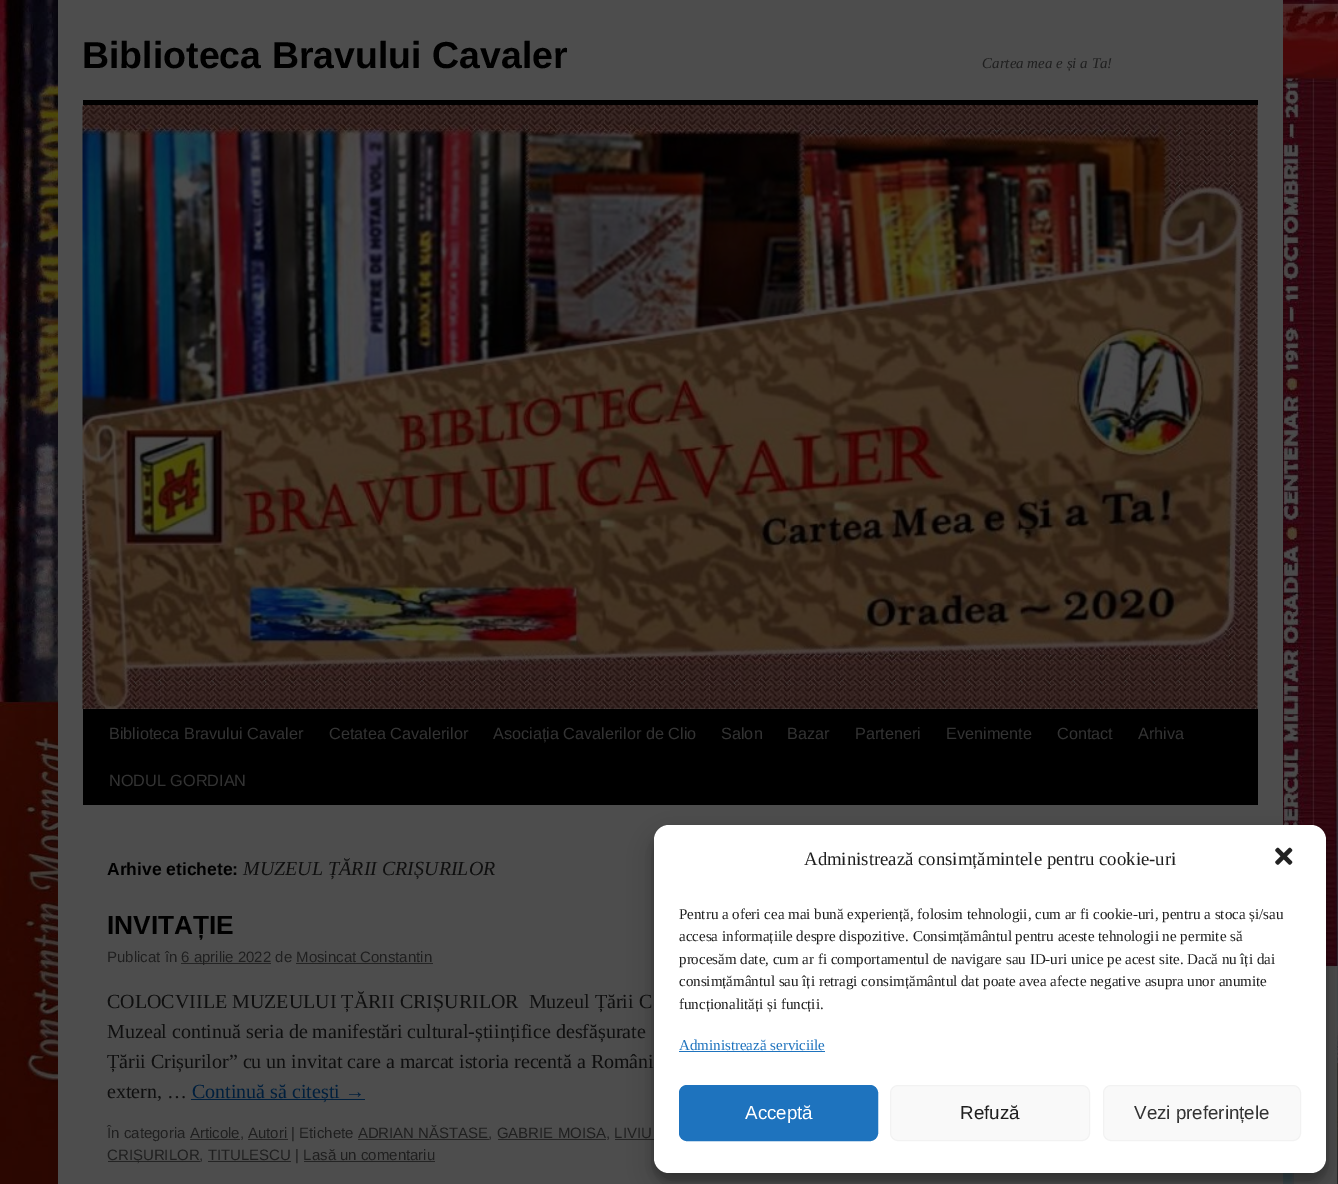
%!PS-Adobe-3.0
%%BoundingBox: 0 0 1338 1184
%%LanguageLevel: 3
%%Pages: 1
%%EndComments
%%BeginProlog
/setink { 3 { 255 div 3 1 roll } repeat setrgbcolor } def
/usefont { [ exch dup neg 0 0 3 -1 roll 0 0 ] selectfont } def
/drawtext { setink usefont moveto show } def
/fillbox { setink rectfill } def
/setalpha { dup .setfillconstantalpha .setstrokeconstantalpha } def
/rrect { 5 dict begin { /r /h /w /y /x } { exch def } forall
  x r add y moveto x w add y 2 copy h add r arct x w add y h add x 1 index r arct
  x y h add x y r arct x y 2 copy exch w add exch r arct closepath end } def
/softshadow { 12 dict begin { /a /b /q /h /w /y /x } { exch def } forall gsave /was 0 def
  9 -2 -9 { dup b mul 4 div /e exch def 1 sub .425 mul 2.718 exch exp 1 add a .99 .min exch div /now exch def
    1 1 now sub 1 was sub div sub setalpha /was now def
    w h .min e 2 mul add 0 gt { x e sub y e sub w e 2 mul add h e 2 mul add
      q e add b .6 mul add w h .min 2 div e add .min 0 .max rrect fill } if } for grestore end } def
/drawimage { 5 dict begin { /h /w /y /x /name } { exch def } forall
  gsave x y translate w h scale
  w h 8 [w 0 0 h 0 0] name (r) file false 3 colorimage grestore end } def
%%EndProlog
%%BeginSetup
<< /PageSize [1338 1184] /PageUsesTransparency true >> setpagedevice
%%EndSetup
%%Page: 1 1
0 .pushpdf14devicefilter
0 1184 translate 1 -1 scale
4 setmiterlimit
0 0 1338 1184 255 255 255 fillbox
(assets/img1.rgb) 0 0 1338 1184 drawimage
58 0 1225 1184 77 77 77 fillbox
(Biblioteca Bravului Cavaler) 82 68 /LiberationSans-Bold 37.5 0 0 0 drawtext
(Cartea mea e și a Ta!) 982 68 /LiberationSerif-Italic 15 31 31 31 drawtext
83 100 1175 5 0 0 0 fillbox
83 709 1175 96 0 0 0 fillbox
(assets/img2.rgb) 82 105 1176 604 drawimage
(Biblioteca Bravului Cavaler) 109 739 /LiberationSans-Regular 16.25 51 51 51 drawtext
(Cetatea Cavalerilor) 329 739 /LiberationSans-Regular 16.25 51 51 51 drawtext
(Asociația Cavalerilor de Clio) 493 739 /LiberationSans-Regular 16.25 51 51 51 drawtext
(Salon) 721 739 /LiberationSans-Regular 16.25 51 51 51 drawtext
(Bazar) 787 739 /LiberationSans-Regular 16.25 51 51 51 drawtext
(Parteneri) 855 739 /LiberationSans-Regular 16.25 51 51 51 drawtext
(Evenimente) 946 739 /LiberationSans-Regular 16.25 51 51 51 drawtext
(Contact) 1057 739 /LiberationSans-Regular 16.25 51 51 51 drawtext
(Arhiva) 1138 739 /LiberationSans-Regular 16.25 51 51 51 drawtext
(NODUL GORDIAN) 109 786 /LiberationSans-Regular 16.25 51 51 51 drawtext
(Arhive etichete:) 107 875 /LiberationSans-Bold 17.5 0 0 0 drawtext
(MUZEUL ȚĂRII CRIȘURILOR) 243 875 /LiberationSerif-Italic 20 15 15 15 drawtext
(INVITAȚIE) 107 934 /LiberationSans-Bold 26.25 0 0 0 drawtext
(Publicat în) 107 962 /LiberationSans-Regular 15 31 31 31 drawtext
181 963 90 1 36 36 36 fillbox
(6 aprilie 2022 de Mosincat Constantin) 181 962 /LiberationSans-Regular 15 31 31 31 drawtext
296 963 137 1 36 36 36 fillbox
(COLOCVIILE MUZEULUI ȚĂRII CRIȘURILOR  Muzeul Țării C) 107 1008 /LiberationSerif-Regular 20 15 15 15 drawtext
(Muzeal continuă seria de manifestări cultural-științifice desfășurate) 107 1038 /LiberationSerif-Regular 20 15 15 15 drawtext
(Țării Crișurilor” cu un invitat care a marcat istoria recentă a Români) 107 1068 /LiberationSerif-Regular 20 15 15 15 drawtext
(extern, …) 107 1098 /LiberationSerif-Regular 20 15 15 15 drawtext
191 1099 174 1 0 31 61 fillbox
(Continuă să citești →) 192 1098 /LiberationSerif-Regular 20 0 31 61 drawtext
(În categoria Articole, Autori | Etichete ADRIAN NĂSTASE, GABRIE MOISA, LIVIU) 107 1138 /LiberationSans-Regular 15 31 31 31 drawtext
190 1139 50 1 36 36 36 fillbox
248 1139 40 1 36 36 36 fillbox
108 1161 92 1 36 36 36 fillbox
(CRIȘURILOR, TITULESCU | Lasă un comentariu) 107 1160 /LiberationSans-Regular 15 31 31 31 drawtext
358 1139 131 1 36 36 36 fillbox
498 1139 108 1 36 36 36 fillbox
615 1139 39 1 36 36 36 fillbox
208 1161 83 1 36 36 36 fillbox
304 1161 131 1 36 36 36 fillbox
0 0 0 setink
654 833 672 347 15 4 0.23 softshadow
654 838 672 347 15 12.5 0.19 softshadow
255 255 255 setink
654 825 672 348 15 rrect fill
(Administrează consimțămintele pentru cookie-uri) 804 865 /LiberationSerif-Regular 18.75 31 31 31 drawtext
(assets/img3.rgb) 1275 847 18 18 drawimage
(Pentru a oferi cea mai bună experiență, folosim tehnologii, cum ar fi cookie-uri, pentru a stoca și/sau) 679 919 /LiberationSerif-Regular 15 31 31 31 drawtext
(accesa informațiile despre dispozitive. Consimțământul pentru aceste tehnologii ne permite să) 679 941 /LiberationSerif-Regular 15 31 31 31 drawtext
(procesăm date, cum ar fi comportamentul de navigare sau ID-uri unice pe acest site. Dacă nu îți dai) 679 964 /LiberationSerif-Regular 15 31 31 31 drawtext
(consimțământul sau îți retragi consimțământul dat poate avea afecte negative asupra unor anumite) 679 986 /LiberationSerif-Regular 15 31 31 31 drawtext
(funcționalități și funcții.) 679 1009 /LiberationSerif-Regular 15 31 31 31 drawtext
(Administrează serviciile) 679 1050 /LiberationSerif-Regular 15 30 115 190 drawtext
679 1051 146 1 30 115 190 fillbox
679.5 1085.5 198 55 7.5 rrect gsave fill grestore
stroke
(Acceptă) 745 1119 /LiberationSans-Regular 18.75 255 255 255 drawtext
249 249 249 setink
890.5 1085.5 199 55 7.5 rrect gsave fill grestore
242 242 242 setink
stroke
(Refuză) 960 1119 /LiberationSans-Regular 18.75 31 31 31 drawtext
249 249 249 setink
1103.5 1085.5 197 55 7.5 rrect gsave fill grestore
242 242 242 setink
stroke
(Vezi preferințele) 1134 1119 /LiberationSans-Regular 18.75 51 51 51 drawtext
.poppdf14devicefilter showpage
%%EOF
